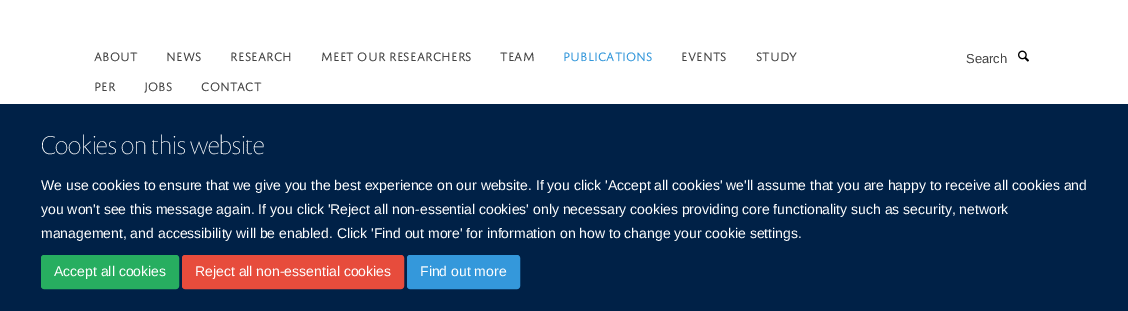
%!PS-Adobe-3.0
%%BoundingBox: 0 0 1128 311
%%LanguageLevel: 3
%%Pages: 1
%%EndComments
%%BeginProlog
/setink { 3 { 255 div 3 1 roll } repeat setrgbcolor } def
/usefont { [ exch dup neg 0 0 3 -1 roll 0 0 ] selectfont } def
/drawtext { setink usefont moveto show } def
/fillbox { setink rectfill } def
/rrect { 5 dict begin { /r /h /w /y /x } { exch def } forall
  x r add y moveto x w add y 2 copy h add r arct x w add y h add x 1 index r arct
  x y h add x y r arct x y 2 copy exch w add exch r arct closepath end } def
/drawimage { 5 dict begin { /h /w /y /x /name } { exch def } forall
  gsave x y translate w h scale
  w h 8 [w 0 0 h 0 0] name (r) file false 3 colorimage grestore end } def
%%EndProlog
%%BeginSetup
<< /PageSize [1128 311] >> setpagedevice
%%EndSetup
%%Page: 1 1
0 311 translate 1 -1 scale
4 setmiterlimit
0 0 1128 311 255 255 255 fillbox
(ABOUT) 94 61 /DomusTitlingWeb-Regular 13 68 68 68 drawtext
(NEWS) 166 61 /DomusTitlingWeb-Regular 13 68 68 68 drawtext
(RESEARCH) 230 61 /DomusTitlingWeb-Regular 13 68 68 68 drawtext
(MEET OUR RESEARCHERS) 321 61 /DomusTitlingWeb-Regular 13 68 68 68 drawtext
(TEAM) 500 61 /DomusTitlingWeb-Regular 13 68 68 68 drawtext
(PUBLICATIONS) 563 61 /DomusTitlingWeb-Regular 13 52 152 219 drawtext
(EVENTS) 681 61 /DomusTitlingWeb-Regular 13 68 68 68 drawtext
(STUDY) 756 61 /DomusTitlingWeb-Regular 13 68 68 68 drawtext
(PER) 94 91 /DomusTitlingWeb-Regular 13 68 68 68 drawtext
(JOBS) 144 91 /DomusTitlingWeb-Regular 13 68 68 68 drawtext
(CONTACT) 201 91 /DomusTitlingWeb-Regular 13 68 68 68 drawtext
(Search) 966 63 /LiberationSans-Regular 13 68 68 68 drawtext
(assets/img1.rgb) 1018 50 11 12 drawimage
0 104 1128 207 0 33 71 fillbox
(Cookies on this website) 41 154 /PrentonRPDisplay-Thin 26 255 255 255 drawtext
(We use cookies to ensure that we give you the best experience on our website. If you click 'Accept all cookies' we'll assume that you are happy to receive all cookies and) 41 190 /LiberationSans-Regular 14 255 255 255 drawtext
(you won't see this message again. If you click 'Reject all non-essential cookies' only necessary cookies providing core functionality such as security, network) 41 214 /LiberationSans-Regular 14 255 255 255 drawtext
(management, and accessibility will be enabled. Click 'Find out more' for information on how to change your cookie settings.) 41 238 /LiberationSans-Regular 14 255 255 255 drawtext
39 174 96 setink
41.5 255.5 137 33 2.5 rrect gsave fill grestore
stroke
(Accept all cookies) 54 276 /LiberationSans-Regular 14 255 255 255 drawtext
231 76 60 setink
182.5 255.5 221 33 2.5 rrect gsave fill grestore
stroke
(Reject all non-essential cookies) 195 276 /LiberationSans-Regular 14 255 255 255 drawtext
52 152 219 setink
407.5 255.5 112 33 2.5 rrect gsave fill grestore
stroke
(Find out more) 420 276 /LiberationSans-Regular 14 255 255 255 drawtext
showpage
%%EOF
